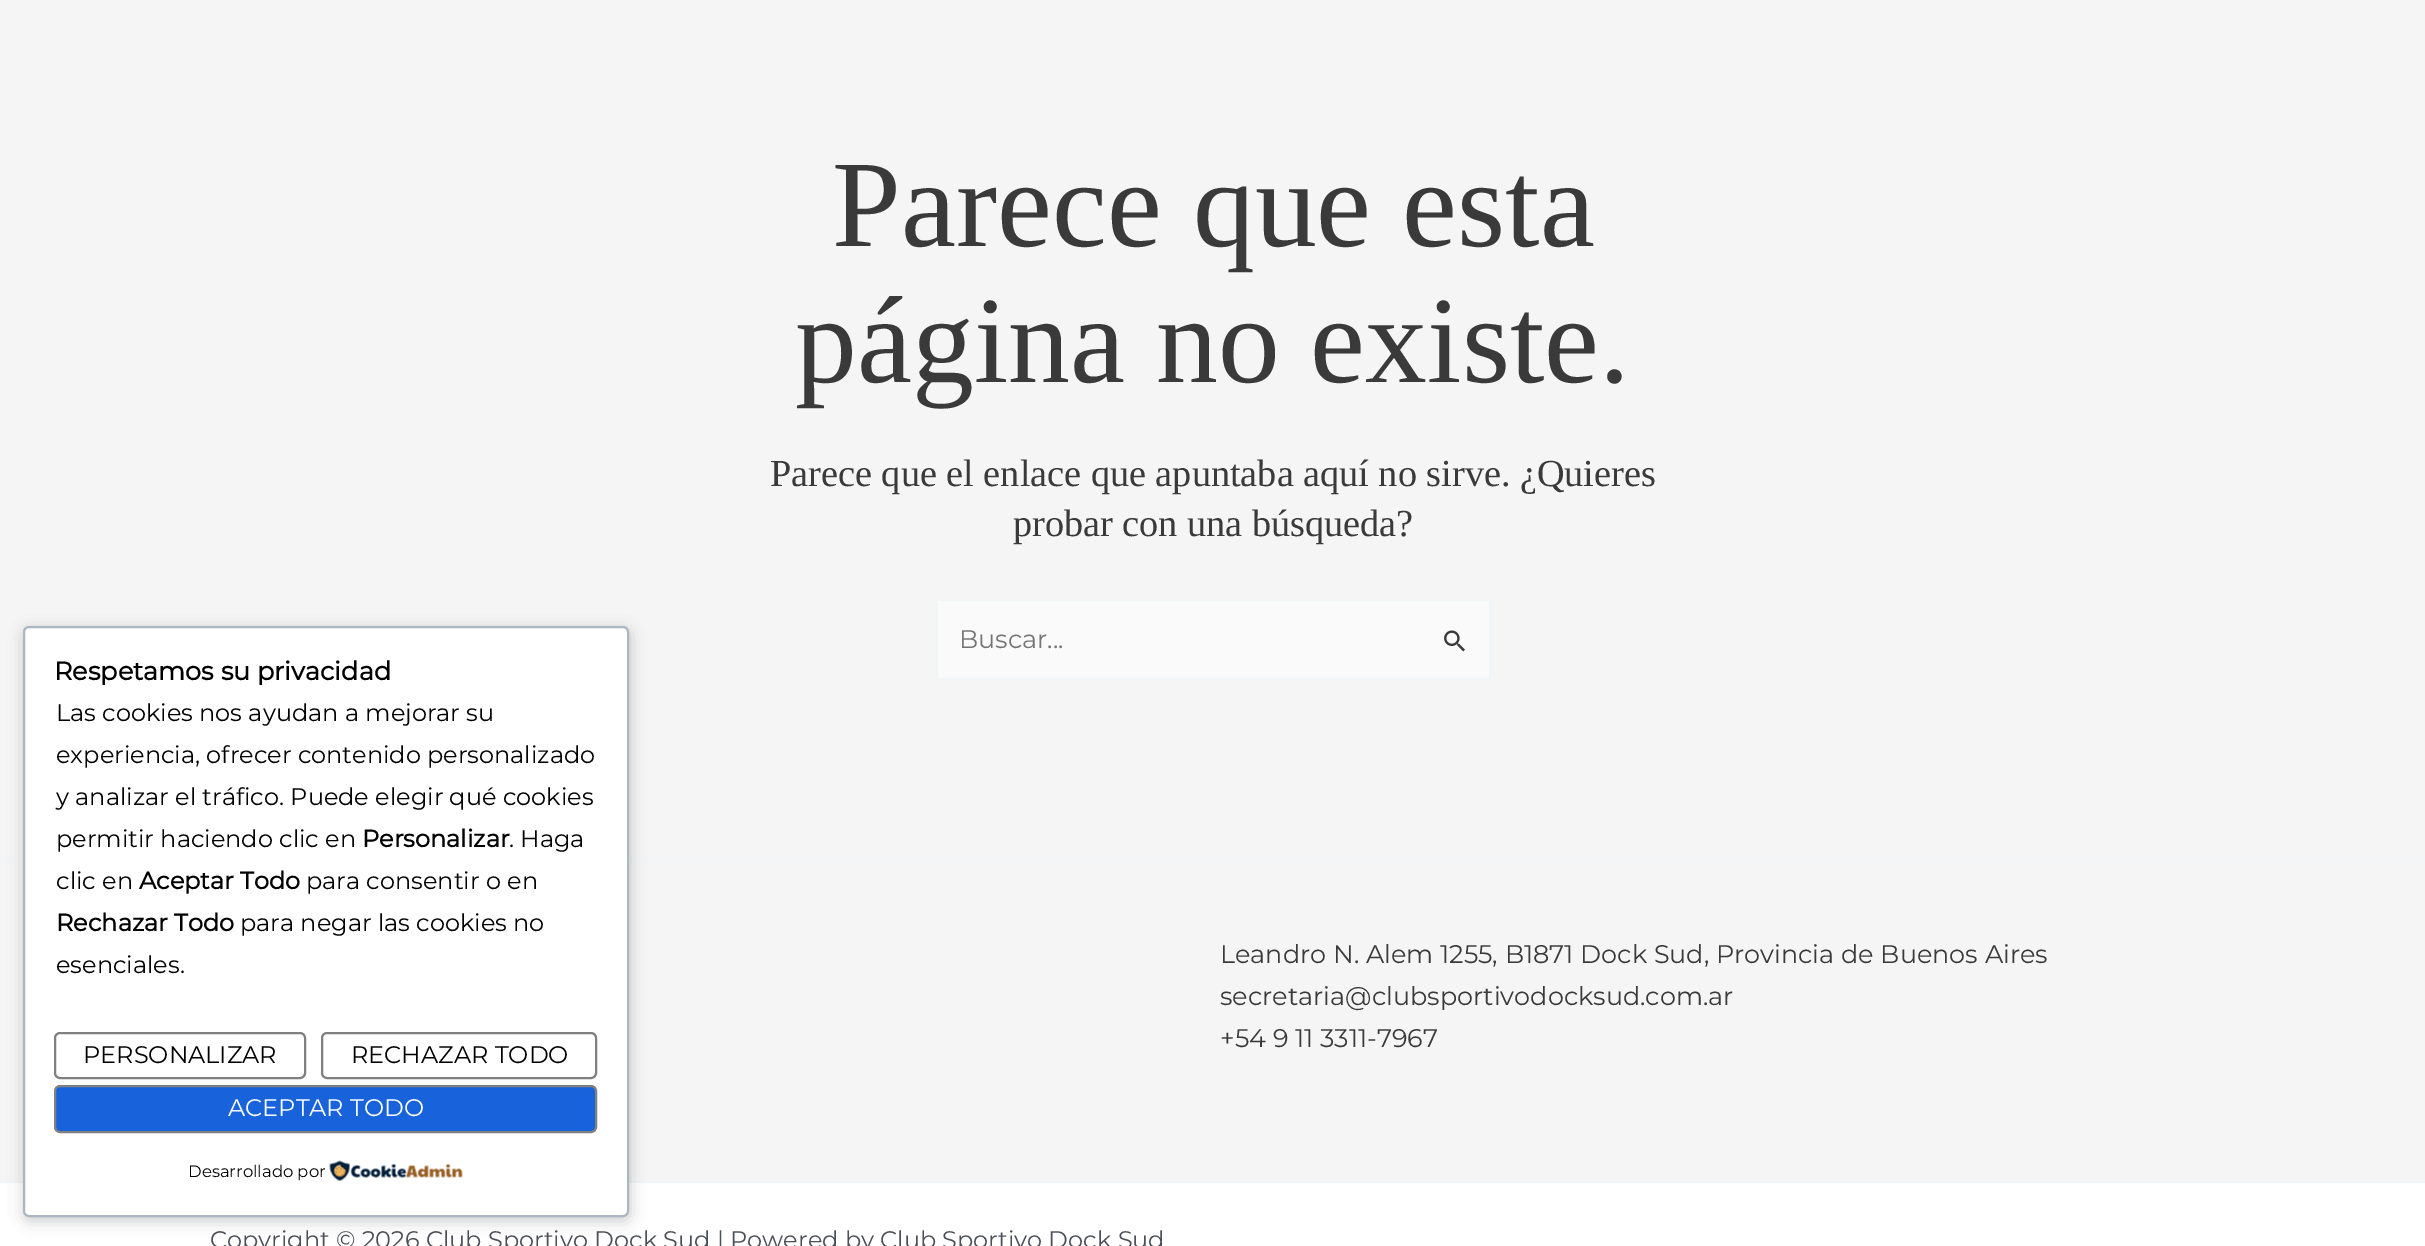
%!PS-Adobe-3.0
%%BoundingBox: 0 0 2425 1246
%%LanguageLevel: 3
%%Pages: 1
%%EndComments
%%BeginProlog
/setink { 3 { 255 div 3 1 roll } repeat setrgbcolor } def
/usefont { [ exch dup neg 0 0 3 -1 roll 0 0 ] selectfont } def
/drawtext { setink usefont moveto show } def
/fillbox { setink rectfill } def
/setalpha { dup .setfillconstantalpha .setstrokeconstantalpha } def
/rrect { 5 dict begin { /r /h /w /y /x } { exch def } forall
  x r add y moveto x w add y 2 copy h add r arct x w add y h add x 1 index r arct
  x y h add x y r arct x y 2 copy exch w add exch r arct closepath end } def
/softshadow { 12 dict begin { /a /b /q /h /w /y /x } { exch def } forall gsave /was 0 def
  9 -2 -9 { dup b mul 4 div /e exch def 1 sub .425 mul 2.718 exch exp 1 add a .99 .min exch div /now exch def
    1 1 now sub 1 was sub div sub setalpha /was now def
    w h .min e 2 mul add 0 gt { x e sub y e sub w e 2 mul add h e 2 mul add
      q e add b .6 mul add w h .min 2 div e add .min 0 .max rrect fill } if } for grestore end } def
/drawimage { 5 dict begin { /h /w /y /x /name } { exch def } forall
  gsave x y translate w h scale
  w h 8 [w 0 0 h 0 0] name (r) file false 3 colorimage grestore end } def
%%EndProlog
%%BeginSetup
<< /PageSize [2425 1246] /PageUsesTransparency true >> setpagedevice
%%EndSetup
%%Page: 1 1
0 .pushpdf14devicefilter
0 1246 translate 1 -1 scale
4 setmiterlimit
0 0 2425 1246 245 245 245 fillbox
(Parece que esta) 832 246 /LiberationSerif-Regular 123.75 58 58 58 drawtext
(página no existe.) 795 382 /LiberationSerif-Regular 123.75 58 58 58 drawtext
(Parece que el enlace que apuntaba aquí no sirve. ¿Quieres) 770 486 /LiberationSerif-Regular 38.25 58 58 58 drawtext
(probar con una búsqueda?) 1013 536 /LiberationSerif-Regular 38.25 58 58 58 drawtext
250 250 250 setink
937 600 553 79 2 rrect gsave fill grestore
242 245 247 setink
2 setlinewidth
stroke
(Buscar...) 959 648 /Montserrat-Thin 25.5 117 117 117 drawtext
(assets/img1.rgb) 1444 630 21 22 drawimage
0 858 2425 2 242 245 247 fillbox
(Leandro N. Alem 1255, B1871 Dock Sud, Provincia de Buenos Aires) 1220 963 /Montserrat-Thin 25.5 58 58 58 drawtext
(secretaria@clubsportivodocksud.com.ar) 1220 1005 /Montserrat-Thin 25.5 58 58 58 drawtext
(+54 9 11 3311-7967) 1220 1047 /Montserrat-Thin 25.5 58 58 58 drawtext
0 1183 2425 63 255 255 255 fillbox
0 1181 2425 2 242 245 247 fillbox
(Copyright © 2026 Club Sportivo Dock Sud | Powered by Club Sportivo Dock Sud) 210 1248 /Montserrat-Thin 24 75 79 88 drawtext
0 0 0 setink
24 630 606 591 6 7.5 0.2 softshadow
255 255 255 setink
24 627 604 589 5 rrect gsave fill grestore
171 184 195 setink
stroke
(Respetamos su privacidad) 54 680 /Montserrat-Bold 25.5 0 0 0 drawtext
(Las cookies nos ayudan a mejorar su) 56 721 /Montserrat-Thin 24 0 0 0 drawtext
(experiencia, ofrecer contenido personalizado) 56 763 /Montserrat-Thin 24 0 0 0 drawtext
(y analizar el tráfico. Puede elegir qué cookies) 56 805 /Montserrat-Thin 24 0 0 0 drawtext
(permitir haciendo clic en) 56 847 /Montserrat-Thin 24 0 0 0 drawtext
(Personalizar) 362 847 /Montserrat-Bold 24 0 0 0 drawtext
(. Haga) 509 847 /Montserrat-Thin 24 0 0 0 drawtext
(clic en) 56 889 /Montserrat-Thin 24 0 0 0 drawtext
(Aceptar Todo) 139 889 /Montserrat-Bold 24 0 0 0 drawtext
(para consentir o en) 306 889 /Montserrat-Thin 24 0 0 0 drawtext
(Rechazar Todo) 56 931 /Montserrat-Bold 24 0 0 0 drawtext
(para negar las cookies no) 240 931 /Montserrat-Thin 24 0 0 0 drawtext
(esenciales.) 56 973 /Montserrat-Thin 24 0 0 0 drawtext
128 128 128 setink
55 1033 250 45 5 rrect stroke
(PERSONALIZAR) 83 1063 /Montserrat-Thin 24 0 0 0 drawtext
128 128 128 setink
322 1033 274 45 5 rrect stroke
(RECHAZAR TODO) 351 1063 /Montserrat-Thin 24 0 0 0 drawtext
24 99 220 setink
55 1086 541 46 5 rrect gsave fill grestore
128 128 128 setink
stroke
(ACEPTAR TODO) 228 1116 /Montserrat-Thin 24 255 255 255 drawtext
(Desarrollado por) 188 1177 /Montserrat-Thin 16.5 0 0 0 drawtext
(assets/img2.rgb) 329 1160 134 22 drawimage
.poppdf14devicefilter showpage
%%EOF
